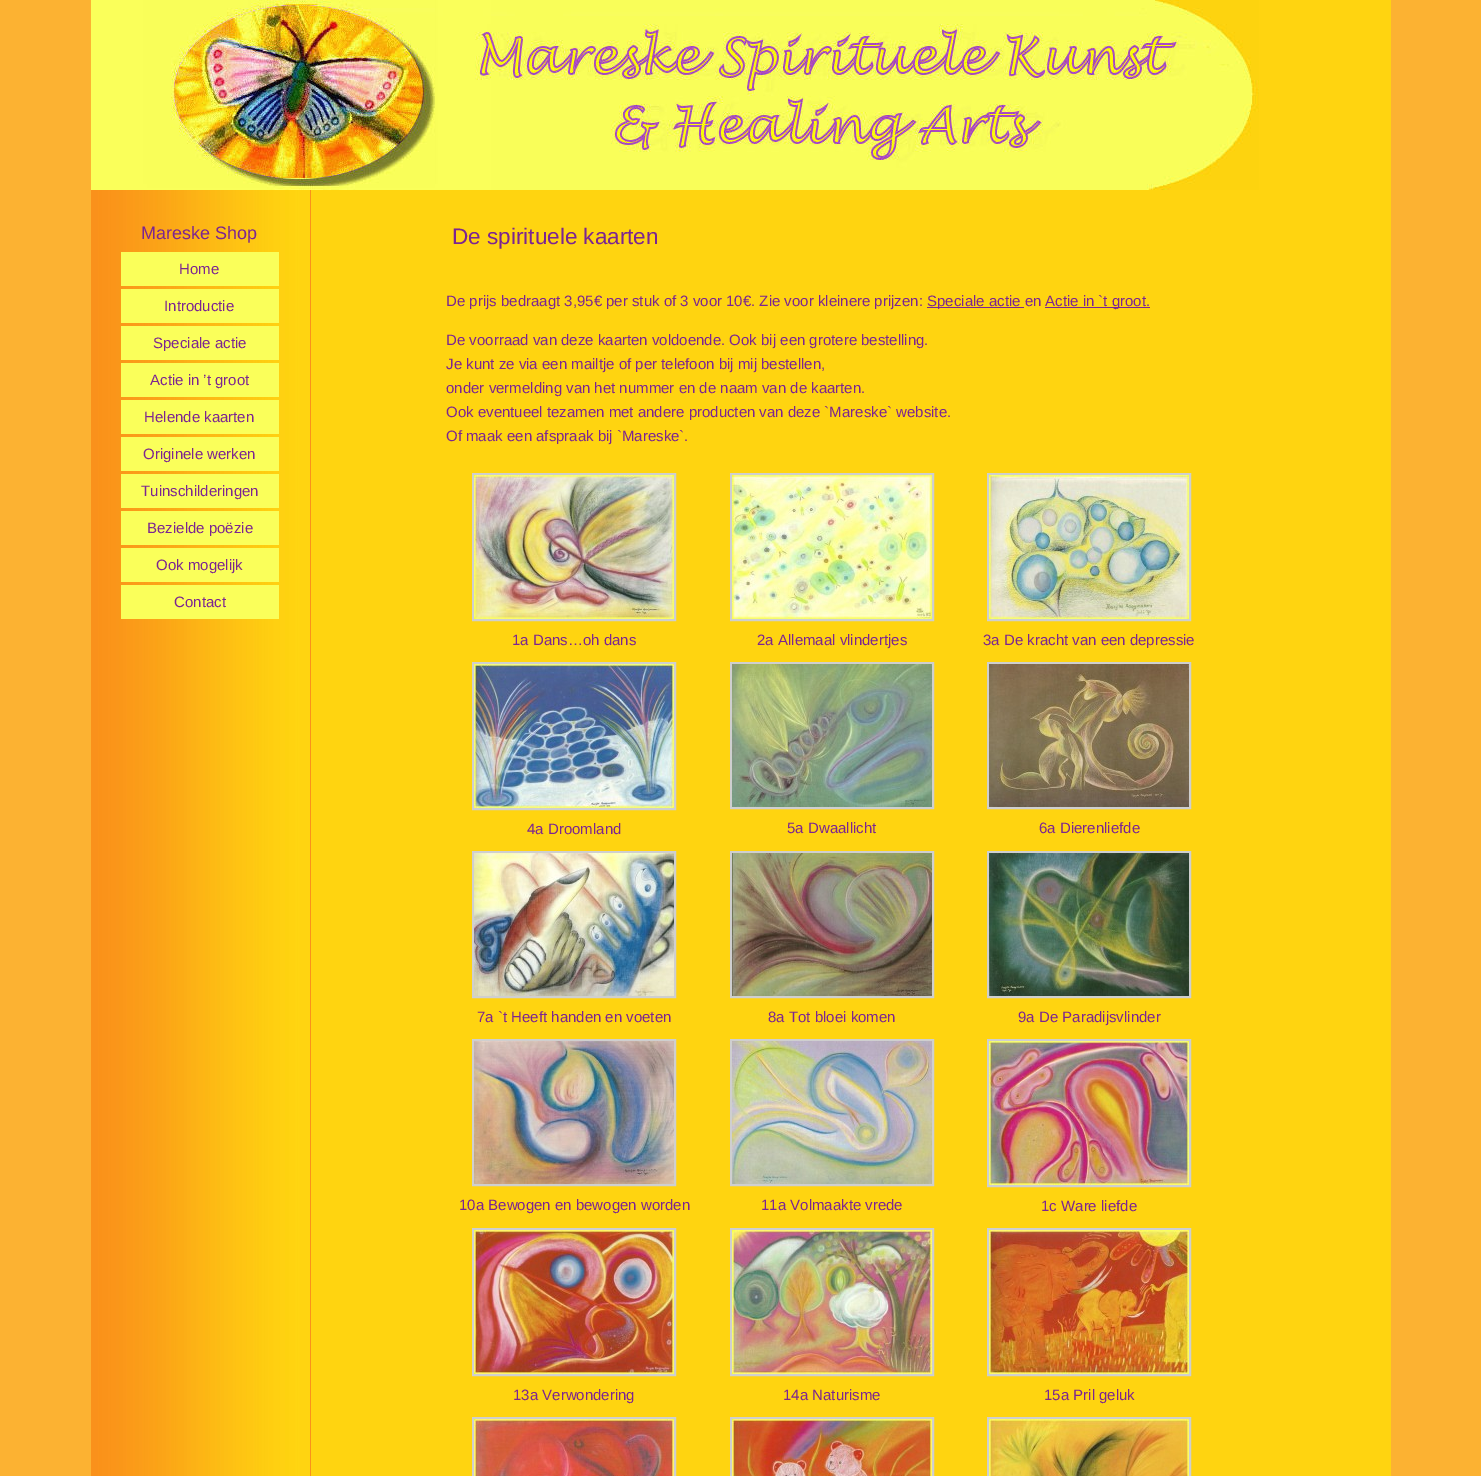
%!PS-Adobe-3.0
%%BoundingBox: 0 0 1481 1476
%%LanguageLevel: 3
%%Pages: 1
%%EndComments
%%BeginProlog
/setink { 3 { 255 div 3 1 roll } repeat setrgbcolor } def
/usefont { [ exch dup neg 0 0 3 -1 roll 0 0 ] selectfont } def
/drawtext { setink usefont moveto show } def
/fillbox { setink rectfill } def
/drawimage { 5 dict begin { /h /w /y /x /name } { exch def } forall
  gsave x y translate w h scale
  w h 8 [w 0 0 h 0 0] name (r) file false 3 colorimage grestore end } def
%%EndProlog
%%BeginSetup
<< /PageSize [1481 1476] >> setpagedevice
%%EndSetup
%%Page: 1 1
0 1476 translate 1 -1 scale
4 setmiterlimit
0 0 1481 1476 252 178 50 fillbox
311 0 1080 1476 255 212 16 fillbox
(assets/img1.rgb) 91 190 220 1286 drawimage
(assets/img2.rgb) 91 0 1168 190 drawimage
(Mareske Shop) 141 239 /LiberationSans-Regular 18 124 37 145 drawtext
121 252 158 34 250 255 90 fillbox
(Home) 179 274 /LiberationSans-Regular 15 124 37 145 drawtext
121 289 158 34 250 255 90 fillbox
(Introductie) 164 311 /LiberationSans-Regular 15 124 37 145 drawtext
121 326 158 34 250 255 90 fillbox
(Speciale actie) 153 348 /LiberationSans-Regular 15 124 37 145 drawtext
121 363 158 34 250 255 90 fillbox
(Actie in ’t groot) 150 385 /LiberationSans-Regular 15 124 37 145 drawtext
121 400 158 34 250 255 90 fillbox
(Helende kaarten) 144 422 /LiberationSans-Regular 15 124 37 145 drawtext
121 437 158 34 250 255 90 fillbox
(Originele werken) 143 459 /LiberationSans-Regular 15 124 37 145 drawtext
121 474 158 34 250 255 90 fillbox
(Tuinschilderingen) 141 496 /LiberationSans-Regular 15 124 37 145 drawtext
121 511 158 34 250 255 90 fillbox
(Bezielde poëzie) 147 533 /LiberationSans-Regular 15 124 37 145 drawtext
121 548 158 34 250 255 90 fillbox
(Ook mogelijk) 156 570 /LiberationSans-Regular 15 124 37 145 drawtext
121 585 158 34 250 255 90 fillbox
(Contact) 174 607 /LiberationSans-Regular 15 124 37 145 drawtext
(De spirituele kaarten) 452 244 /LiberationSans-Regular 22.5 124 37 145 drawtext
(De prijs bedraagt 3,95€ per stuk of 3 voor 10€. Zie voor kleinere prijzen:) 446 306 /LiberationSans-Regular 15 124 37 145 drawtext
927 307 97 1 124 37 145 fillbox
(Speciale actie en) 927 306 /LiberationSans-Regular 15 124 37 145 drawtext
1045 307 105 1 124 37 145 fillbox
(Actie in `t groot.) 1045 306 /LiberationSans-Regular 15 124 37 145 drawtext
(De voorraad van deze kaarten voldoende. Ook bij een grotere bestelling.) 446 345 /LiberationSans-Regular 15 124 37 145 drawtext
(Je kunt ze via een mailtje of per telefoon bij mij bestellen,) 446 369 /LiberationSans-Regular 15 124 37 145 drawtext
(onder vermelding van het nummer en de naam van de kaarten.) 446 393 /LiberationSans-Regular 15 124 37 145 drawtext
(Ook eventueel tezamen met andere producten van deze `Mareske` website.) 446 417 /LiberationSans-Regular 15 124 37 145 drawtext
(Of maak een afspraak bij `Mareske`.) 446 441 /LiberationSans-Regular 15 124 37 145 drawtext
207 207 207 setink
2 setlinewidth
473 474 202 146 rectstroke
(assets/img3.rgb) 474 475 200 144 drawimage
(1a Dans…oh dans) 512 645 /LiberationSans-Regular 15 124 37 145 drawtext
207 207 207 setink
731 474 202 146 rectstroke
(assets/img4.rgb) 732 475 200 144 drawimage
(2a Allemaal vlindertjes) 757 645 /LiberationSans-Regular 15 124 37 145 drawtext
207 207 207 setink
988 474 202 146 rectstroke
(assets/img5.rgb) 989 475 200 144 drawimage
(3a De kracht van een depressie) 983 645 /LiberationSans-Regular 15 124 37 145 drawtext
207 207 207 setink
473 663 202 146 rectstroke
(assets/img6.rgb) 474 664 200 144 drawimage
(4a Droomland) 527 834 /LiberationSans-Regular 15 124 37 145 drawtext
207 207 207 setink
731 663 202 145 rectstroke
(assets/img7.rgb) 732 664 200 143 drawimage
(5a Dwaallicht) 787 833 /LiberationSans-Regular 15 124 37 145 drawtext
207 207 207 setink
988 663 202 145 rectstroke
(assets/img8.rgb) 989 664 200 143 drawimage
(6a Dierenliefde) 1039 833 /LiberationSans-Regular 15 124 37 145 drawtext
207 207 207 setink
473 852 202 145 rectstroke
(assets/img9.rgb) 474 853 200 143 drawimage
(7a `t Heeft handen en voeten) 477 1022 /LiberationSans-Regular 15 124 37 145 drawtext
207 207 207 setink
731 852 202 145 rectstroke
(assets/img10.rgb) 732 853 200 143 drawimage
(8a Tot bloei komen) 768 1022 /LiberationSans-Regular 15 124 37 145 drawtext
207 207 207 setink
988 852 202 145 rectstroke
(assets/img11.rgb) 989 853 200 143 drawimage
(9a De Paradijsvlinder) 1018 1022 /LiberationSans-Regular 15 124 37 145 drawtext
207 207 207 setink
473 1040 202 145 rectstroke
(assets/img12.rgb) 474 1041 200 143 drawimage
(10a Bewogen en bewogen worden) 459 1210 /LiberationSans-Regular 15 124 37 145 drawtext
207 207 207 setink
731 1040 202 145 rectstroke
(assets/img13.rgb) 732 1041 200 143 drawimage
(11a Volmaakte vrede) 761 1210 /LiberationSans-Regular 15 124 37 145 drawtext
207 207 207 setink
988 1040 202 146 rectstroke
(assets/img14.rgb) 989 1041 200 144 drawimage
(1c Ware liefde) 1041 1211 /LiberationSans-Regular 15 124 37 145 drawtext
207 207 207 setink
473 1229 202 146 rectstroke
(assets/img15.rgb) 474 1230 200 144 drawimage
(13a Verwondering) 513 1400 /LiberationSans-Regular 15 124 37 145 drawtext
207 207 207 setink
731 1229 202 146 rectstroke
(assets/img16.rgb) 732 1230 200 144 drawimage
(14a Naturisme) 783 1400 /LiberationSans-Regular 15 124 37 145 drawtext
207 207 207 setink
988 1229 202 146 rectstroke
(assets/img17.rgb) 989 1230 200 144 drawimage
(15a Pril geluk) 1044 1400 /LiberationSans-Regular 15 124 37 145 drawtext
207 207 207 setink
473 1418 202 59 rectstroke
(assets/img18.rgb) 474 1419 200 57 drawimage
731 1418 202 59 rectstroke
(assets/img19.rgb) 732 1419 200 57 drawimage
988 1418 202 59 rectstroke
(assets/img20.rgb) 989 1419 200 57 drawimage
showpage
%%EOF
